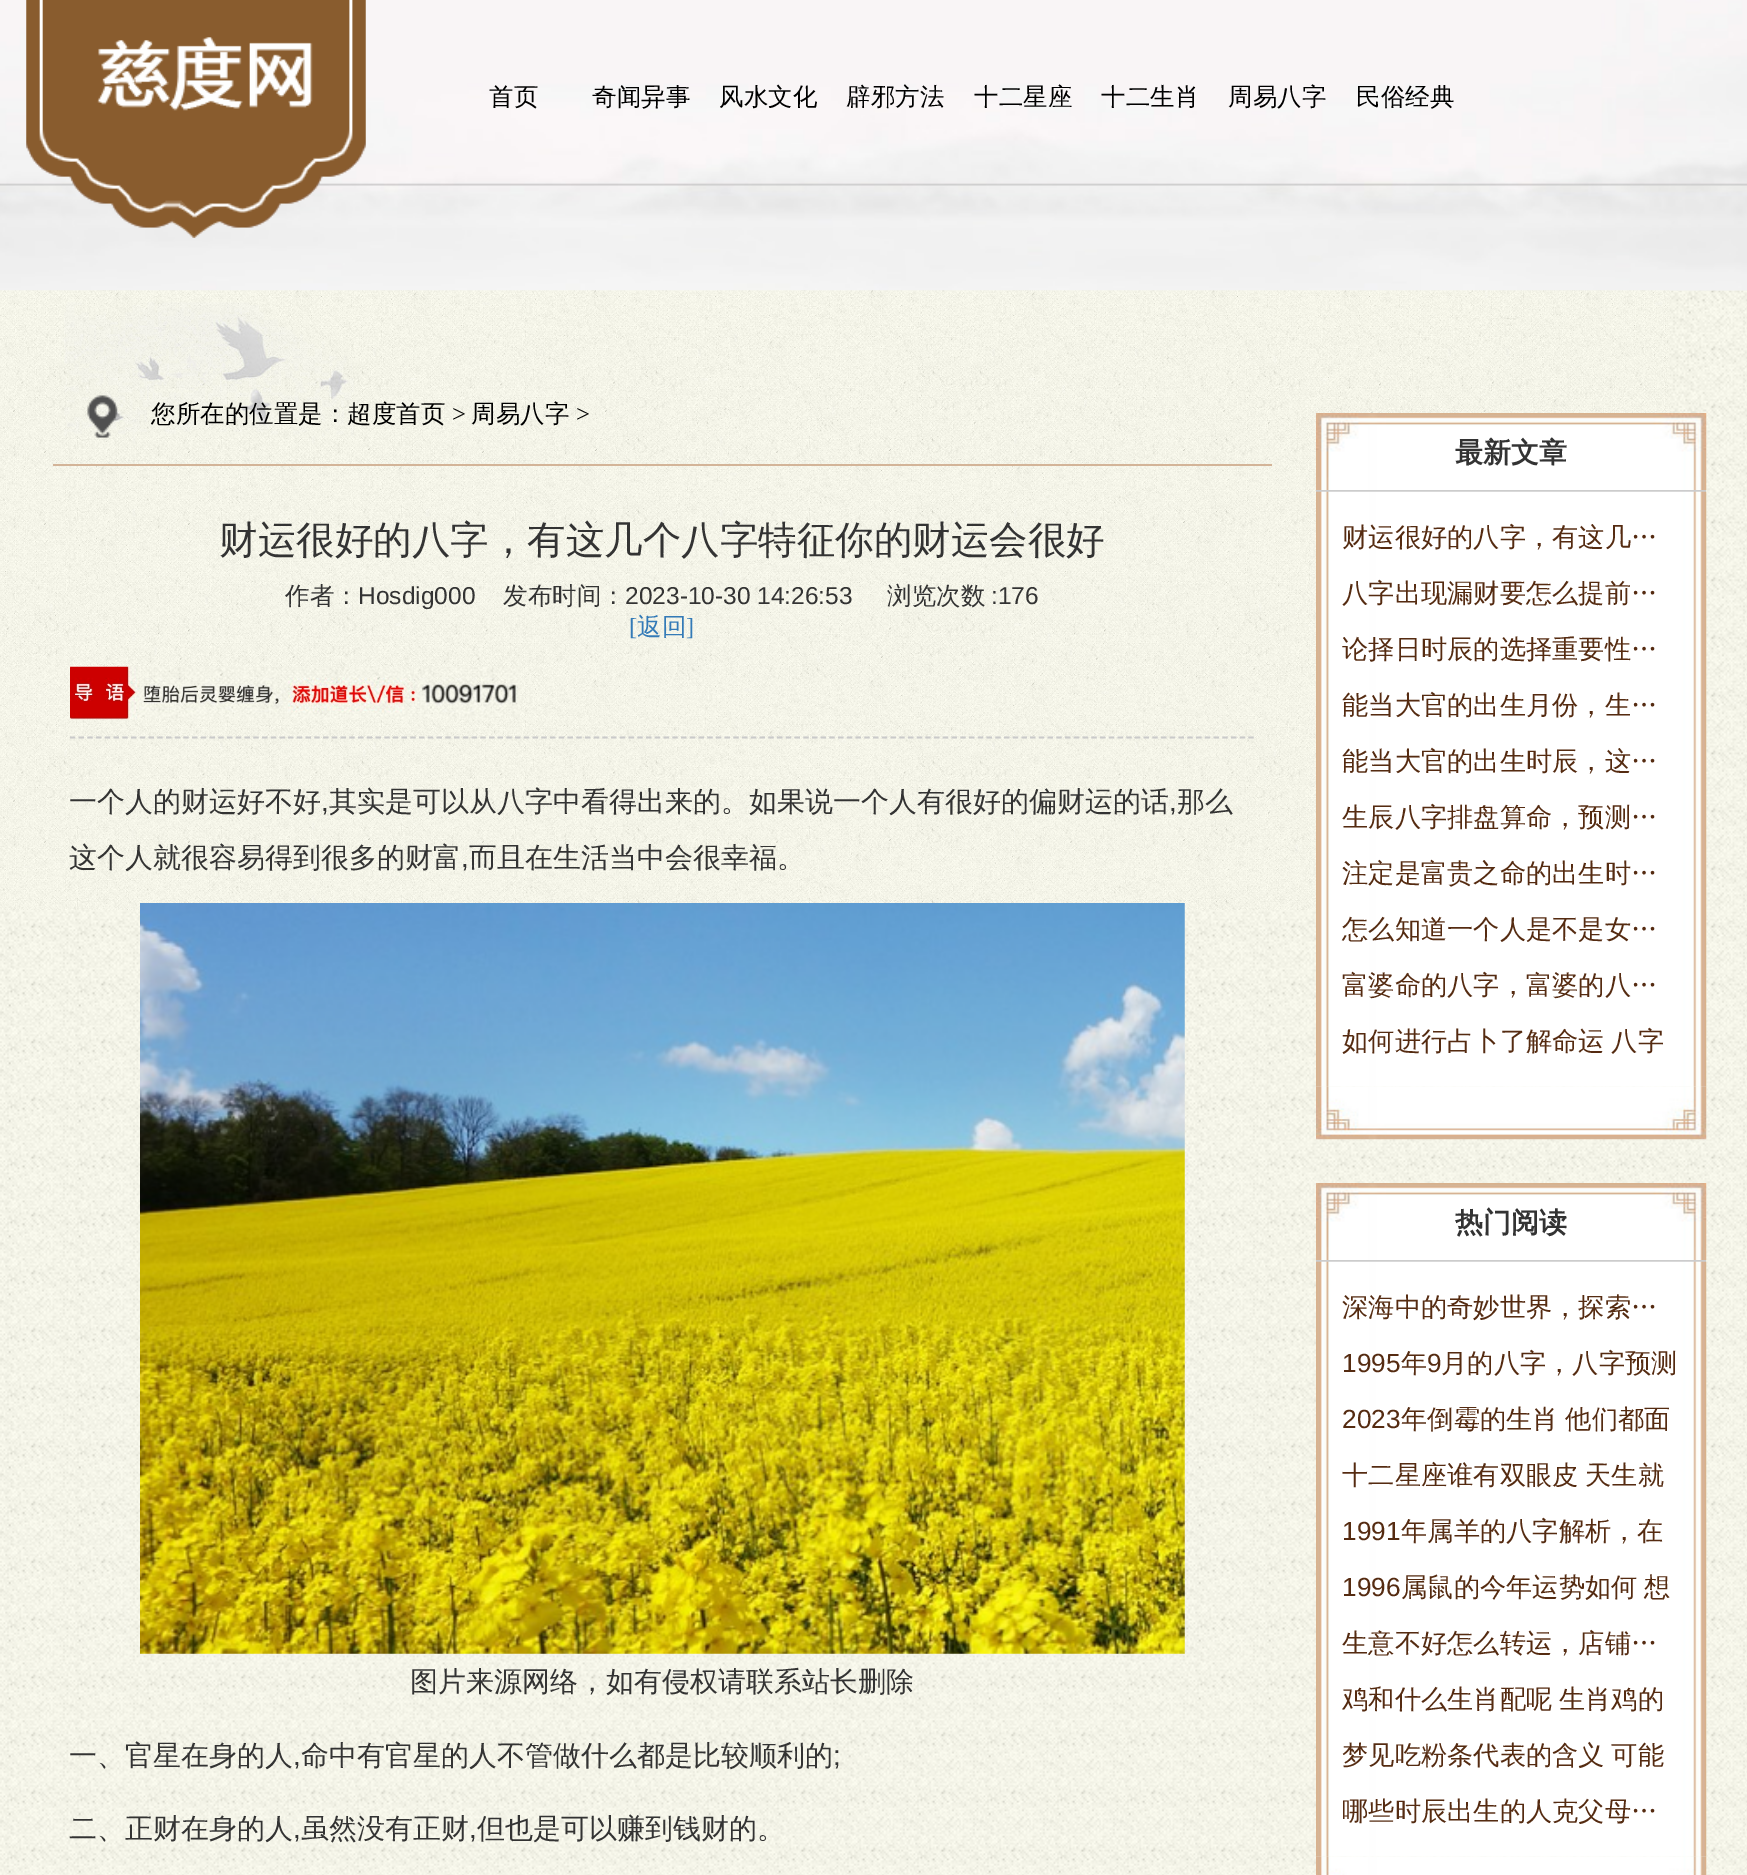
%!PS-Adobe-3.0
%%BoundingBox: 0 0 1747 1875
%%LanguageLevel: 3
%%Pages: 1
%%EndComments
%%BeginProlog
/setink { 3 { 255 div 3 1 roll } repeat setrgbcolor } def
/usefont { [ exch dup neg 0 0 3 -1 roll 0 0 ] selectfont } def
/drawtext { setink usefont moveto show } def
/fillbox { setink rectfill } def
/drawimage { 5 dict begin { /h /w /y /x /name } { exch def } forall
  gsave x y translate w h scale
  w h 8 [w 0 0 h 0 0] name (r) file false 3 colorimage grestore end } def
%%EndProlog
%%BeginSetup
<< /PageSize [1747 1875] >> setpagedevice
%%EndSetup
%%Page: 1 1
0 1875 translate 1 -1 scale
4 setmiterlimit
0 0 1747 1875 255 255 255 fillbox
(assets/img1.rgb) 0 290 1747 1585 drawimage
(assets/img2.rgb) 0 0 1747 291 drawimage
(assets/img3.rgb) 26 0 340 238 drawimage
(assets/img4.rgb) 97 37 216 74 drawimage
(首页) 489 105 /WenQuanYiZenHei-Medium 24.5 0 0 0 drawtext
(奇闻异事) 592 105 /WenQuanYiZenHei-Medium 24.5 0 0 0 drawtext
(风水文化) 719 105 /WenQuanYiZenHei-Medium 24.5 0 0 0 drawtext
(辟邪方法) 846 105 /WenQuanYiZenHei-Medium 24.5 0 0 0 drawtext
(十二星座) 974 105 /WenQuanYiZenHei-Medium 24.5 0 0 0 drawtext
(十二生肖) 1101 105 /WenQuanYiZenHei-Medium 24.5 0 0 0 drawtext
(周易八字) 1228 105 /WenQuanYiZenHei-Medium 24.5 0 0 0 drawtext
(民俗经典) 1356 105 /WenQuanYiZenHei-Medium 24.5 0 0 0 drawtext
(assets/img5.rgb) 0 290 1670 620 drawimage
53 464 1219 2 211 180 152 fillbox
(assets/img6.rgb) 87 395 31 43 drawimage
(您所在的位置是：超度首页) 151 422 /WenQuanYiZenHei-Medium 24.5 0 0 0 drawtext
(>) 452 422 /LiberationSerif-Regular 24.5 0 0 0 drawtext
(周易八字) 471 422 /WenQuanYiZenHei-Medium 24.5 0 0 0 drawtext
(>) 576 422 /LiberationSerif-Regular 24.5 0 0 0 drawtext
202 202 202 setink
1.8 setlinewidth
[5.25 3.48] 0 setdash
70 737.5 moveto 1255 737.5 lineto stroke
(财运很好的八字，有这几个八字特征你的财运会很好) 219 553 /WenQuanYiZenHei-Medium 38.5 51 51 51 drawtext
(作者：) 285 604 /WenQuanYiZenHei-Medium 24.5 51 51 51 drawtext
(Hosdig000) 358 604 /LiberationSans-Regular 24.5 51 51 51 drawtext
(发布时间：) 503 604 /WenQuanYiZenHei-Medium 24.5 51 51 51 drawtext
(2023-10-30 14:26:53) 625 604 /LiberationSans-Regular 24.5 51 51 51 drawtext
(浏览次数) 887 604 /WenQuanYiZenHei-Medium 24.5 51 51 51 drawtext
(:176) 991 604 /LiberationSans-Regular 24.5 51 51 51 drawtext
([) 629 635 /LiberationSerif-Regular 24.5 51 122 183 drawtext
(返回) 637 635 /WenQuanYiZenHei-Medium 24.5 51 122 183 drawtext
(]) 686 635 /LiberationSerif-Regular 24.5 51 122 183 drawtext
(assets/img7.rgb) 70 666 450 54 drawimage
(一个人的财运好不好) 69 811 /WenQuanYiZenHei-Medium 28 51 51 51 drawtext
(,) 321 811 /LiberationSans-Regular 28 51 51 51 drawtext
(其实是可以从八字中看得出来的。如果说一个人有很好的偏财运的话) 329 811 /WenQuanYiZenHei-Medium 28 51 51 51 drawtext
(,) 1169 811 /LiberationSans-Regular 28 51 51 51 drawtext
(那么) 1177 811 /WenQuanYiZenHei-Medium 28 51 51 51 drawtext
(这个人就很容易得到很多的财富) 69 867 /WenQuanYiZenHei-Medium 28 51 51 51 drawtext
(,) 461 867 /LiberationSans-Regular 28 51 51 51 drawtext
(而且在生活当中会很幸福。) 469 867 /WenQuanYiZenHei-Medium 28 51 51 51 drawtext
(assets/img8.rgb) 140 903 1045 751 drawimage
(图片来源网络，如有侵权请联系站长删除) 410 1691 /WenQuanYiZenHei-Medium 28 51 51 51 drawtext
(一、官星在身的人) 69 1765 /WenQuanYiZenHei-Medium 28 51 51 51 drawtext
(,) 293 1765 /LiberationSans-Regular 28 51 51 51 drawtext
(命中有官星的人不管做什么都是比较顺利的) 301 1765 /WenQuanYiZenHei-Medium 28 51 51 51 drawtext
(;) 833 1765 /LiberationSans-Regular 28 51 51 51 drawtext
(二、正财在身的人) 69 1838 /WenQuanYiZenHei-Medium 28 51 51 51 drawtext
(,) 293 1838 /LiberationSans-Regular 28 51 51 51 drawtext
(虽然没有正财) 301 1838 /WenQuanYiZenHei-Medium 28 51 51 51 drawtext
(,) 469 1838 /LiberationSans-Regular 28 51 51 51 drawtext
(但也是可以赚到钱财的。) 477 1838 /WenQuanYiZenHei-Medium 28 51 51 51 drawtext
(assets/img9.rgb) 1316 413 391 77 drawimage
1316 490 390 2 204 204 204 fillbox
(最新文章) 1455 462 /WenQuanYiZenHei-Bold 28 51 51 51 drawtext
(assets/img10.rgb) 1316 491 391 596 drawimage
(财运很好的八字，有这几…) 1342 546 /WenQuanYiZenHei-Medium 26.25 85 43 17 drawtext
(八字出现漏财要怎么提前…) 1342 602 /WenQuanYiZenHei-Medium 26.25 85 43 17 drawtext
(论择日时辰的选择重要性…) 1342 658 /WenQuanYiZenHei-Medium 26.25 85 43 17 drawtext
(能当大官的出生月份，生…) 1342 714 /WenQuanYiZenHei-Medium 26.25 85 43 17 drawtext
(能当大官的出生时辰，这…) 1342 770 /WenQuanYiZenHei-Medium 26.25 85 43 17 drawtext
(生辰八字排盘算命，预测…) 1342 826 /WenQuanYiZenHei-Medium 26.25 85 43 17 drawtext
(注定是富贵之命的出生时…) 1342 882 /WenQuanYiZenHei-Medium 26.25 85 43 17 drawtext
(怎么知道一个人是不是女…) 1342 938 /WenQuanYiZenHei-Medium 26.25 85 43 17 drawtext
(富婆命的八字，富婆的八…) 1342 994 /WenQuanYiZenHei-Medium 26.25 85 43 17 drawtext
1342 1050 moveto -1 0 32 (如何进行占卜了解命运 八字) widthshow
(assets/img11.rgb) 1316 1086 391 54 drawimage
(assets/img12.rgb) 1316 1183 391 77 drawimage
1316 1260 390 2 204 204 204 fillbox
(热门阅读) 1455 1232 /WenQuanYiZenHei-Bold 28 51 51 51 drawtext
(assets/img13.rgb) 1316 1261 391 596 drawimage
(深海中的奇妙世界，探索…) 1342 1316 /WenQuanYiZenHei-Medium 26.25 85 43 17 drawtext
(1995) 1342 1372 /LiberationSans-Regular 26.25 85 43 17 drawtext
(年) 1401 1372 /WenQuanYiZenHei-Medium 26.25 85 43 17 drawtext
(9) 1427 1372 /LiberationSans-Regular 26.25 85 43 17 drawtext
(月的八字，八字预测) 1441 1372 /WenQuanYiZenHei-Medium 26.25 85 43 17 drawtext
(2023) 1342 1428 /LiberationSans-Regular 26.25 85 43 17 drawtext
/WenQuanYiZenHei-Medium 26.25 usefont
1401 1428 moveto -1 0 32 (年倒霉的生肖 他们都面) widthshow
1342 1484 moveto -1 0 32 (十二星座谁有双眼皮 天生就) widthshow
(1991) 1342 1540 /LiberationSans-Regular 26.25 85 43 17 drawtext
(年属羊的八字解析，在) 1401 1540 /WenQuanYiZenHei-Medium 26.25 85 43 17 drawtext
(1996) 1342 1596 /LiberationSans-Regular 26.25 85 43 17 drawtext
/WenQuanYiZenHei-Medium 26.25 usefont
1401 1596 moveto -1 0 32 (属鼠的今年运势如何 想) widthshow
(生意不好怎么转运，店铺…) 1342 1652 /WenQuanYiZenHei-Medium 26.25 85 43 17 drawtext
1342 1708 moveto -1 0 32 (鸡和什么生肖配呢 生肖鸡的) widthshow
1342 1764 moveto -1 0 32 (梦见吃粉条代表的含义 可能) widthshow
(哪些时辰出生的人克父母…) 1342 1820 /WenQuanYiZenHei-Medium 26.25 85 43 17 drawtext
(assets/img14.rgb) 1316 1856 391 19 drawimage
showpage
%%EOF
